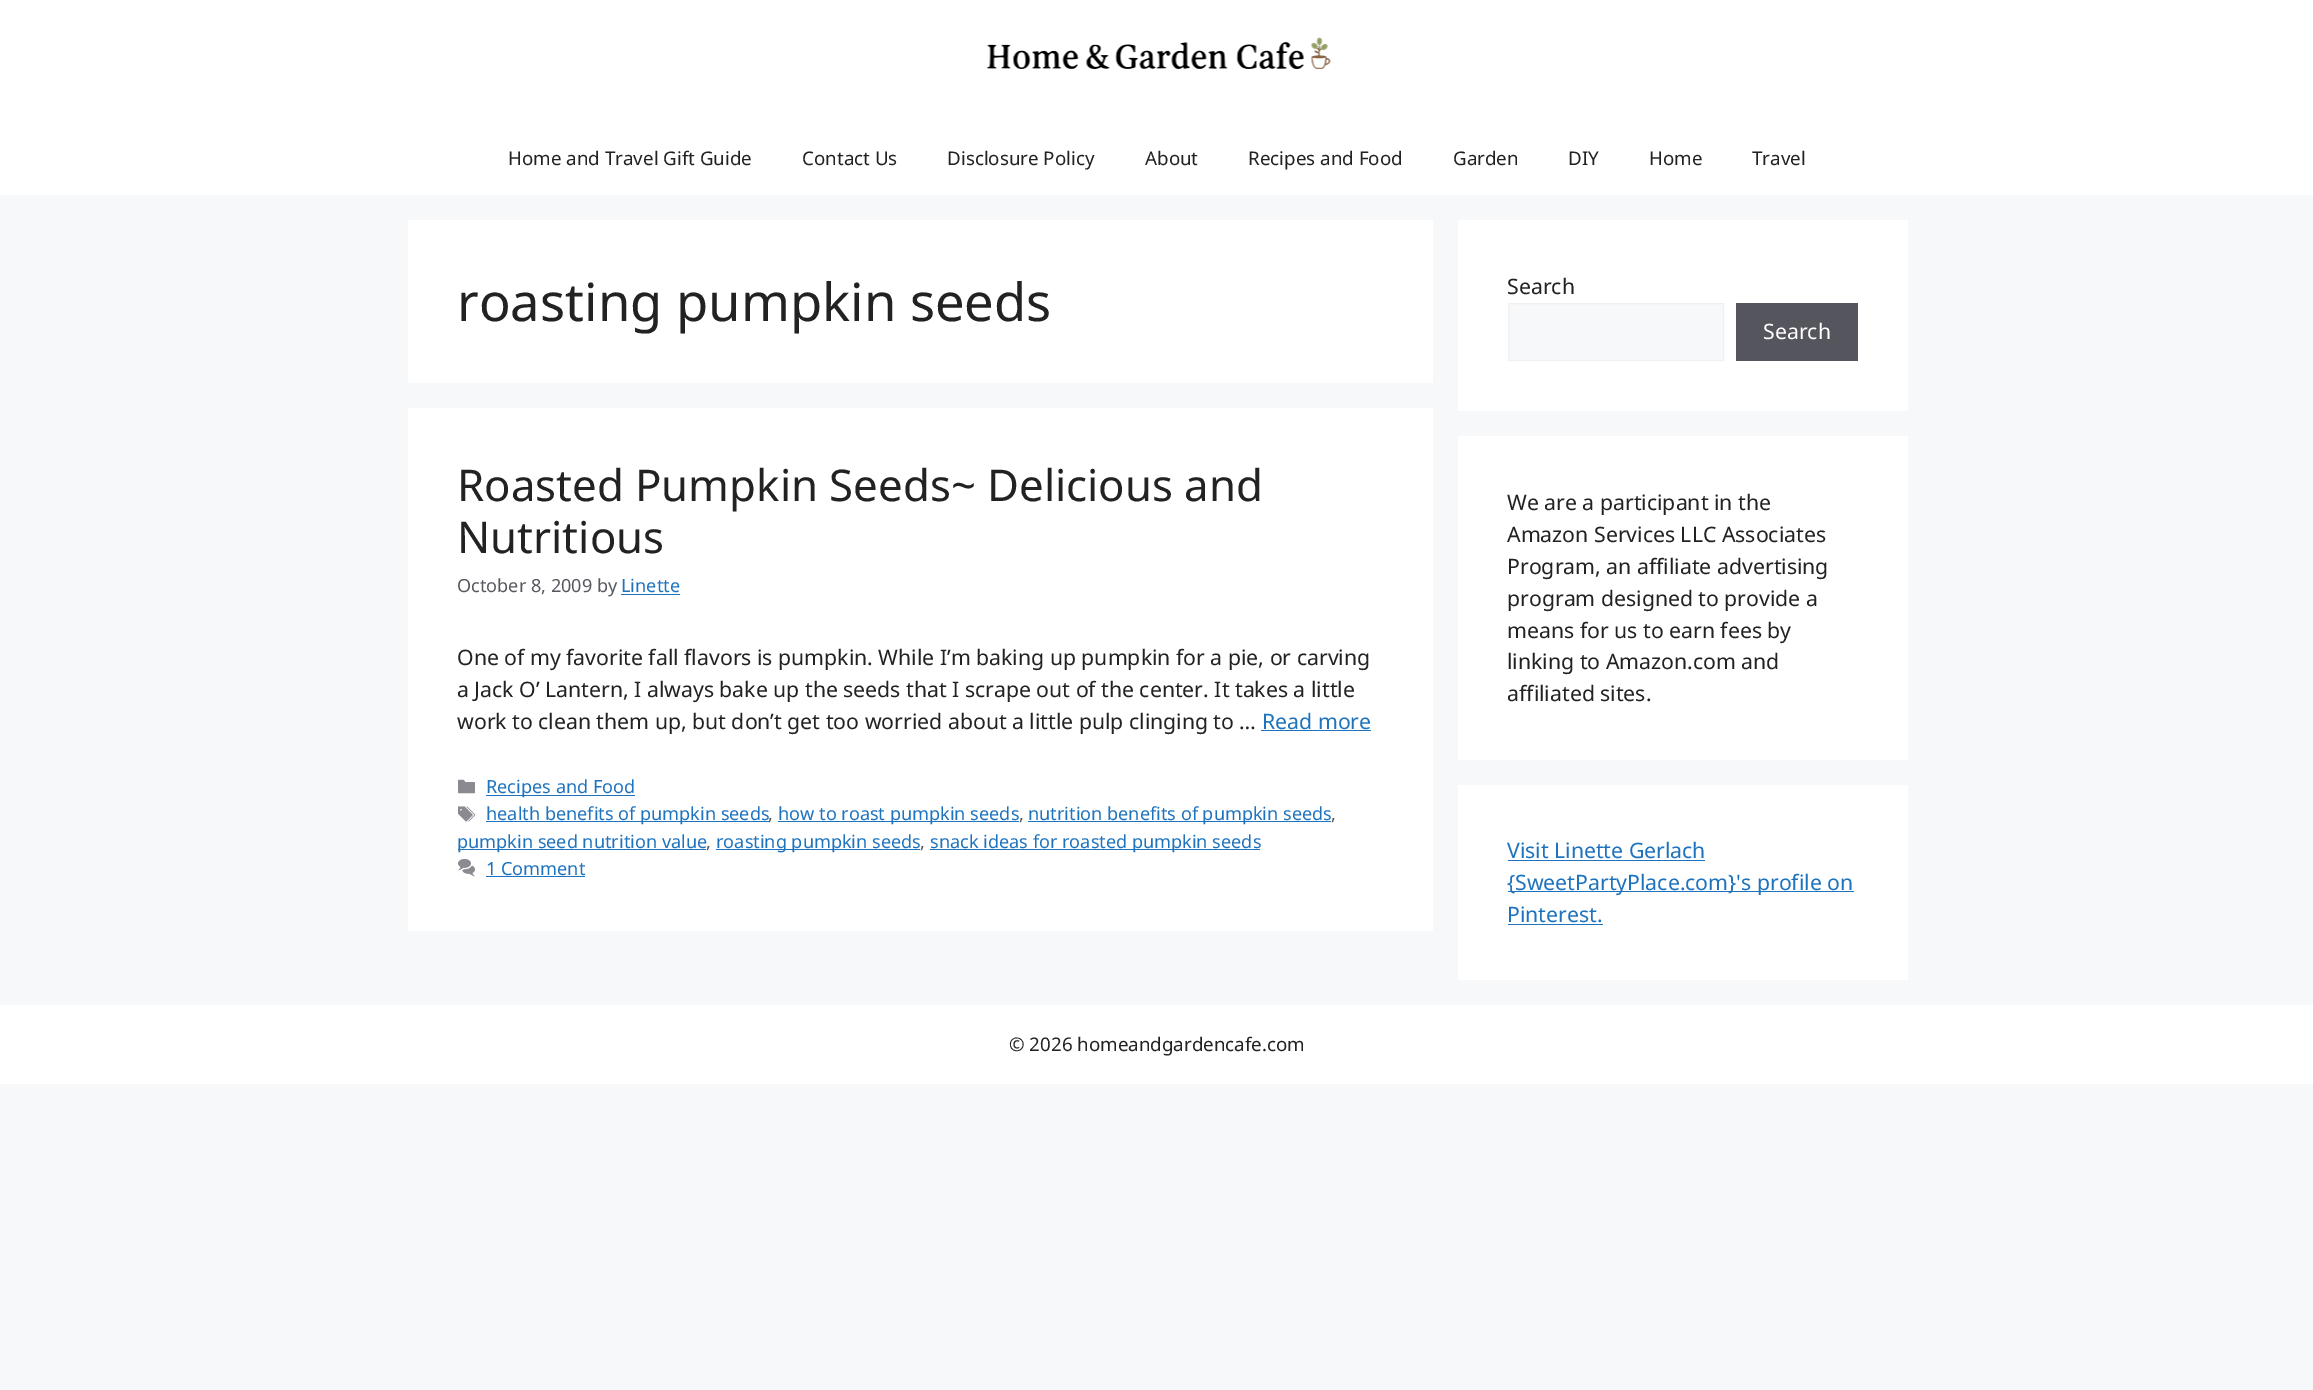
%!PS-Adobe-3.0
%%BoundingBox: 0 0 2313 1390
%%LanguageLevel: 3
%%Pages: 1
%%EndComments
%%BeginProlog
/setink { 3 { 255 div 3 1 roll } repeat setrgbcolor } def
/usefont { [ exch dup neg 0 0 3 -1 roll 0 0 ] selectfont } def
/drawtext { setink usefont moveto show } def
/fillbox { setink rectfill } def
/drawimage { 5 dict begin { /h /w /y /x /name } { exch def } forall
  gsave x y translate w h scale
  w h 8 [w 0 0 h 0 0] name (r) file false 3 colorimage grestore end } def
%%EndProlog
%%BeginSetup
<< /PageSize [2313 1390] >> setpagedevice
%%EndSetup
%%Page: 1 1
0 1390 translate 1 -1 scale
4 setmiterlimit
0 0 2313 1390 247 248 249 fillbox
0 0 2313 195 255 255 255 fillbox
(assets/img1.rgb) 986 37 345 33 drawimage
(Home and Travel Gift Guide) 508 165 /NotoSans-Regular 18.75 34 34 34 drawtext
(Contact Us) 802 165 /NotoSans-Regular 18.75 34 34 34 drawtext
(Disclosure Policy) 947 165 /NotoSans-Regular 18.75 34 34 34 drawtext
(About) 1145 165 /NotoSans-Regular 18.75 34 34 34 drawtext
(Recipes and Food) 1248 165 /NotoSans-Regular 18.75 34 34 34 drawtext
(Garden) 1453 165 /NotoSans-Regular 18.75 34 34 34 drawtext
(DIY) 1568 165 /NotoSans-Regular 18.75 34 34 34 drawtext
(Home) 1649 165 /NotoSans-Regular 18.75 34 34 34 drawtext
(Travel) 1752 165 /NotoSans-Regular 18.75 34 34 34 drawtext
408 220 1025 163 255 255 255 fillbox
(roasting pumpkin seeds) 457 321 /NotoSans-Regular 52.5 34 34 34 drawtext
408 408 1025 523 255 255 255 fillbox
(Roasted Pumpkin Seeds~ Delicious and) 457 501 /NotoSans-Regular 43.75 34 34 34 drawtext
(Nutritious) 457 553 /NotoSans-Regular 43.75 34 34 34 drawtext
(October 8, 2009 by) 457 592 /NotoSans-Regular 18.1 87 87 96 drawtext
(Linette) 621 592 /NotoSans-Regular 18.1 30 115 190 drawtext
621 594 59 1 30 115 190 fillbox
(One of my favorite fall flavors is pumpkin. While I’m baking up pumpkin for a pie, or carving) 457 665 /NotoSans-Regular 21.25 34 34 34 drawtext
(a Jack O’ Lantern, I always bake up the seeds that I scrape out of the center. It takes a little) 457 697 /NotoSans-Regular 21.25 34 34 34 drawtext
(work to clean them up, but don’t get too worried about a little pulp clinging to …) 457 729 /NotoSans-Regular 21.25 34 34 34 drawtext
(Read more) 1262 729 /NotoSans-Regular 21.25 30 115 190 drawtext
1261 730 110 1 30 115 190 fillbox
(assets/img2.rgb) 458 779 17 15 drawimage
486 795 149 1 30 115 190 fillbox
(Recipes and Food) 486 793 /NotoSans-Regular 18.1 30 115 190 drawtext
(assets/img3.rgb) 458 806 17 16 drawimage
486 821 283 1 30 115 190 fillbox
(health benefits of pumpkin seeds) 486 820 /NotoSans-Regular 18.1 30 115 190 drawtext
(,) 768 820 /NotoSans-Regular 18.1 87 87 96 drawtext
778 821 241 1 30 115 190 fillbox
(how to roast pumpkin seeds) 778 820 /NotoSans-Regular 18.1 30 115 190 drawtext
(,) 1019 820 /NotoSans-Regular 18.1 87 87 96 drawtext
1028 821 303 1 30 115 190 fillbox
(nutrition benefits of pumpkin seeds) 1028 820 /NotoSans-Regular 18.1 30 115 190 drawtext
(,) 1331 820 /NotoSans-Regular 18.1 87 87 96 drawtext
458 849 248 1 30 115 190 fillbox
(pumpkin seed nutrition value) 457 848 /NotoSans-Regular 18.1 30 115 190 drawtext
(,) 706 848 /NotoSans-Regular 18.1 87 87 96 drawtext
716 849 204 1 30 115 190 fillbox
(roasting pumpkin seeds) 716 848 /NotoSans-Regular 18.1 30 115 190 drawtext
(,) 920 848 /NotoSans-Regular 18.1 87 87 96 drawtext
930 849 330 1 30 115 190 fillbox
(snack ideas for roasted pumpkin seeds) 930 848 /NotoSans-Regular 18.1 30 115 190 drawtext
(assets/img4.rgb) 458 859 17 18 drawimage
(1 Comment) 486 875 /NotoSans-Regular 18.1 30 115 190 drawtext
486 876 99 1 30 115 190 fillbox
1458 220 450 191 255 255 255 fillbox
(Search) 1507 294 /NotoSans-Regular 21.25 34 34 34 drawtext
247 248 249 setink
1508.5 303.5 moveto 1723.5 303.5 lineto 1723.5 360.5 lineto 1508.5 360.5 lineto closepath gsave fill grestore
240 240 240 setink
stroke
1736 303 122 58 85 85 94 fillbox
(Search) 1763 339 /NotoSans-Regular 21.25 255 255 255 drawtext
1458 436 450 324 255 255 255 fillbox
(We are a participant in the) 1507 510 /NotoSans-Regular 21.25 34 34 34 drawtext
(Amazon Services LLC Associates) 1507 542 /NotoSans-Regular 21.25 34 34 34 drawtext
(Program, an affiliate advertising) 1507 574 /NotoSans-Regular 21.25 34 34 34 drawtext
(program designed to provide a) 1507 606 /NotoSans-Regular 21.25 34 34 34 drawtext
(means for us to earn fees by) 1507 638 /NotoSans-Regular 21.25 34 34 34 drawtext
(linking to Amazon.com and) 1507 669 /NotoSans-Regular 21.25 34 34 34 drawtext
(affiliated sites.) 1507 701 /NotoSans-Regular 21.25 34 34 34 drawtext
1458 785 450 195 255 255 255 fillbox
(Visit Linette Gerlach) 1507 858 /NotoSans-Regular 21.25 30 115 190 drawtext
1508 860 197 1 30 115 190 fillbox
1508 891 346 1 30 115 190 fillbox
({SweetPartyPlace.com}'s profile on) 1507 890 /NotoSans-Regular 21.25 30 115 190 drawtext
(Pinterest.) 1507 922 /NotoSans-Regular 21.25 30 115 190 drawtext
1508 924 95 1 30 115 190 fillbox
0 1005 2313 79 255 255 255 fillbox
(© 2026 homeandgardencafe.com) 1009 1051 /NotoSans-Regular 18.75 34 34 34 drawtext
showpage
%%EOF
